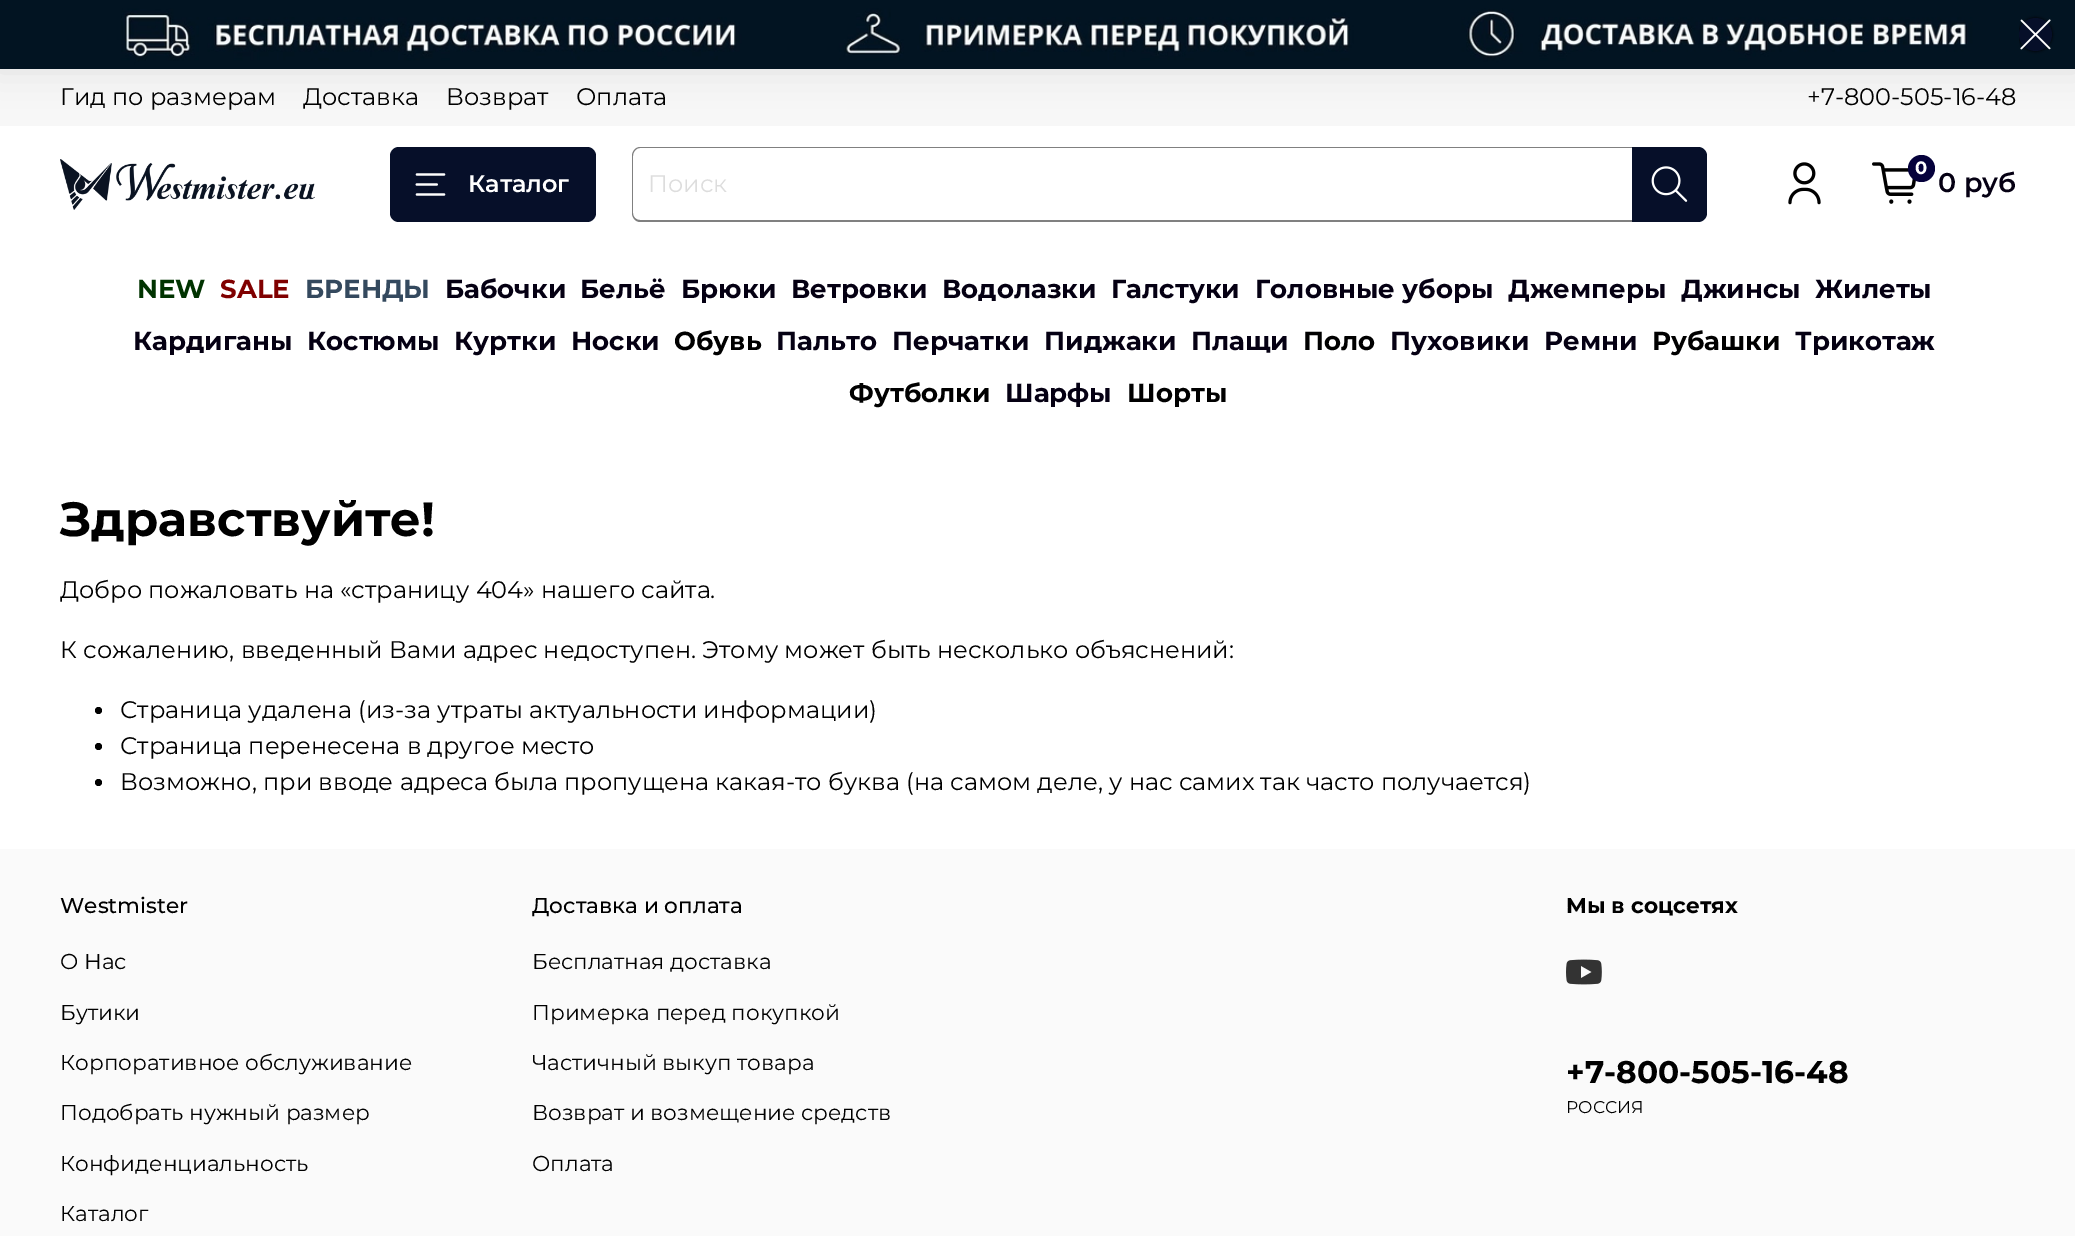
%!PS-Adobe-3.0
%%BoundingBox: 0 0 2075 1236
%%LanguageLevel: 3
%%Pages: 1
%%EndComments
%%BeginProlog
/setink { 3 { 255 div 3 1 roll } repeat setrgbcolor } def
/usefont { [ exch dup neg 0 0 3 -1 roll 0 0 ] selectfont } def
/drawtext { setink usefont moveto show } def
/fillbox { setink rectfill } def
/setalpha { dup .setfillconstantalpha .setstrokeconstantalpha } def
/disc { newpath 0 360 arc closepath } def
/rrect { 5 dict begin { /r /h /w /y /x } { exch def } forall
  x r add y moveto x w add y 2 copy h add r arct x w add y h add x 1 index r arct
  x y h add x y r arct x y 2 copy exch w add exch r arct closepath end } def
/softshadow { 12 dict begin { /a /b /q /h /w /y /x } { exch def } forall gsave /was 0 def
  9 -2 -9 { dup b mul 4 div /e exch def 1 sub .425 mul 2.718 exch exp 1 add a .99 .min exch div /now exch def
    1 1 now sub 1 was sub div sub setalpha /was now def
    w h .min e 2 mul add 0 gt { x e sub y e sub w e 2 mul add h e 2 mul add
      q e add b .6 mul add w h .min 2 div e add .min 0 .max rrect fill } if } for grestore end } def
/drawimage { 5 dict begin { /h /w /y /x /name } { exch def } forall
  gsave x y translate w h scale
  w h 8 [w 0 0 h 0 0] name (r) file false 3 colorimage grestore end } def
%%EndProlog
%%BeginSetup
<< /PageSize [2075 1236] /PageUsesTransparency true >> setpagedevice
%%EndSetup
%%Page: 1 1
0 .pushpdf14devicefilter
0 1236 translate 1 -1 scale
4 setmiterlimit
0 0 2075 1236 255 255 255 fillbox
0 69 2075 57 247 247 247 fillbox
0 0 0 setink
-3 -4 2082 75 0 17 0.09 softshadow
(assets/img1.rgb) 0 0 2075 69 drawimage
gsave
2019 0 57 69 rectclip
2019 18 33 33 16.5 1.5 1 softshadow
grestore
6 15 41 setink
2035.5 34.5 16.5 disc fill
(assets/img2.rgb) 2020 19 31 31 drawimage
(Гид по размерам) 60 105 /Montserrat-Regular 24 0 0 0 drawtext
(Доставка) 303 105 /Montserrat-Regular 24 0 0 0 drawtext
(Возврат) 446 105 /Montserrat-Regular 24 0 0 0 drawtext
(Оплата) 576 105 /Montserrat-Regular 24 0 0 0 drawtext
(+7-800-505-16-48) 1807 105 /Montserrat-Regular 24 0 0 0 drawtext
(assets/img3.rgb) 60 159 255 51 drawimage
6 15 41 setink
390 147 206 75 9 rrect fill
(assets/img4.rgb) 415 173 31 23 drawimage
(Каталог) 468 192 /Montserrat-SemiBold 24 255 255 255 drawtext
128 128 128 setink
640 147 moveto 1632 147 lineto 1632 222 lineto 640 222 lineto 636 222 632 218 632 213 curveto 632 156 lineto 632 151 636 147 640 147 curveto closepath 640 148 moveto 1632 148 lineto 1632 220 lineto 640 220 lineto 636 220 633 217 633 213 curveto 633 156 lineto 633 152 636 148 640 148 curveto closepath eofill
(Поиск) 648 192 /Montserrat-Regular 24 221 221 221 drawtext
6 15 41 setink
1632 147 moveto 1698 147 lineto 1703 147 1707 151 1707 156 curveto 1707 213 lineto 1707 218 1703 222 1698 222 curveto 1632 222 lineto closepath fill
(assets/img5.rgb) 1651 166 37 36 drawimage
(assets/img6.rgb) 1788 162 33 43 drawimage
(assets/img7.rgb) 1872 162 44 42 drawimage
5 1 59 setink
1921.5 168.5 13.5 disc fill
(0) 1915 174 /Montserrat-Bold 18 255 255 255 drawtext
(0 руб) 1938 192 /Montserrat-SemiBold 27 5 0 19 drawtext
(NEW) 137 298 /Montserrat-Bold 26 0 51 0 drawtext
(SALE) 220 298 /Montserrat-Bold 26 128 0 0 drawtext
(БРЕНДЫ) 305 298 /Montserrat-Bold 26 52 73 94 drawtext
(Бабочки) 445 298 /Montserrat-Bold 26 5 0 19 drawtext
(Бельё) 580 298 /Montserrat-Bold 26 5 0 19 drawtext
(Брюки) 681 298 /Montserrat-Bold 26 5 0 19 drawtext
(Ветровки) 791 298 /Montserrat-Bold 26 5 0 19 drawtext
(Водолазки) 942 298 /Montserrat-Bold 26 5 0 19 drawtext
(Галстуки) 1111 298 /Montserrat-Bold 26 5 0 19 drawtext
(Головные уборы) 1255 298 /Montserrat-Bold 26 5 0 19 drawtext
(Джемперы) 1508 298 /Montserrat-Bold 26 5 0 19 drawtext
(Джинсы) 1681 298 /Montserrat-Bold 26 5 0 19 drawtext
(Жилеты) 1815 298 /Montserrat-Bold 26 5 0 19 drawtext
(Кардиганы) 133 350 /Montserrat-Bold 26 5 0 19 drawtext
(Костюмы) 307 350 /Montserrat-Bold 26 5 0 19 drawtext
(Куртки) 454 350 /Montserrat-Bold 26 5 0 19 drawtext
(Носки) 571 350 /Montserrat-Bold 26 5 0 19 drawtext
(Обувь) 674 350 /Montserrat-Bold 26 0 0 0 drawtext
(Пальто) 776 350 /Montserrat-Bold 26 5 0 19 drawtext
(Перчатки) 892 350 /Montserrat-Bold 26 5 0 19 drawtext
(Пиджаки) 1044 350 /Montserrat-Bold 26 5 0 19 drawtext
(Плащи) 1191 350 /Montserrat-Bold 26 5 0 19 drawtext
(Поло) 1303 350 /Montserrat-Bold 26 0 0 0 drawtext
(Пуховики) 1390 350 /Montserrat-Bold 26 5 0 19 drawtext
(Ремни) 1544 350 /Montserrat-Bold 26 5 0 19 drawtext
(Рубашки) 1652 350 /Montserrat-Bold 26 0 0 0 drawtext
(Трикотаж) 1795 350 /Montserrat-Bold 26 5 0 19 drawtext
(Футболки) 849 402 /Montserrat-Bold 26 0 0 0 drawtext
(Шарфы) 1005 402 /Montserrat-Bold 26 5 0 19 drawtext
(Шорты) 1127 402 /Montserrat-Bold 26 0 0 0 drawtext
(Здравствуйте!) 60 536 /Montserrat-Bold 48 0 0 0 drawtext
(Добро пожаловать на «страницу 404» нашего сайта.) 60 598 /Montserrat-Regular 24 0 0 0 drawtext
(К сожалению, введенный Вами адрес недоступен. Этому может быть несколько объяснений:) 60 658 /Montserrat-Regular 24 0 0 0 drawtext
98.5 710.5 3.5 disc fill
(Страница удалена \(из-за утраты актуальности информации\)) 120 718 /Montserrat-Regular 24 0 0 0 drawtext
98.5 746.5 3.5 disc fill
(Страница перенесена в другое место) 120 754 /Montserrat-Regular 24 0 0 0 drawtext
98.5 782.5 3.5 disc fill
(Возможно, при вводе адреса была пропущена какая-то буква \(на самом деле, у нас самих так часто получается\)) 120 790 /Montserrat-Regular 24 0 0 0 drawtext
0 849 2075 387 250 250 250 fillbox
(Westmister) 60 913 /Montserrat-Medium 21.6 0 0 0 drawtext
(О Нас) 60 969 /Montserrat-Regular 21.6 0 0 0 drawtext
(Бутики) 60 1020 /Montserrat-Regular 21.6 0 0 0 drawtext
(Корпоративное обслуживание) 60 1070 /Montserrat-Regular 21.6 0 0 0 drawtext
(Подобрать нужный размер) 60 1120 /Montserrat-Regular 21.6 0 0 0 drawtext
(Конфиденциальность) 60 1171 /Montserrat-Regular 21.6 0 0 0 drawtext
(Каталог) 60 1221 /Montserrat-Regular 21.6 0 0 0 drawtext
(Доставка и оплата) 532 913 /Montserrat-Medium 21.6 0 0 0 drawtext
(Бесплатная доставка) 532 969 /Montserrat-Regular 21.6 0 0 0 drawtext
(Примерка перед покупкой) 532 1020 /Montserrat-Regular 21.6 0 0 0 drawtext
(Частичный выкуп товара) 532 1070 /Montserrat-Regular 21.6 0 0 0 drawtext
(Возврат и возмещение средств) 532 1120 /Montserrat-Regular 21.6 0 0 0 drawtext
(Оплата) 532 1171 /Montserrat-Regular 21.6 0 0 0 drawtext
(Мы в соцсетях) 1566 913 /Montserrat-Bold 21.6 0 0 0 drawtext
(assets/img8.rgb) 1566 959 36 26 drawimage
(+7-800-505-16-48) 1566 1083 /Montserrat-Bold 31.25 0 0 0 drawtext
(РОССИЯ) 1566 1113 /Montserrat-Regular 17 0 0 0 drawtext
.poppdf14devicefilter showpage
%%EOF
